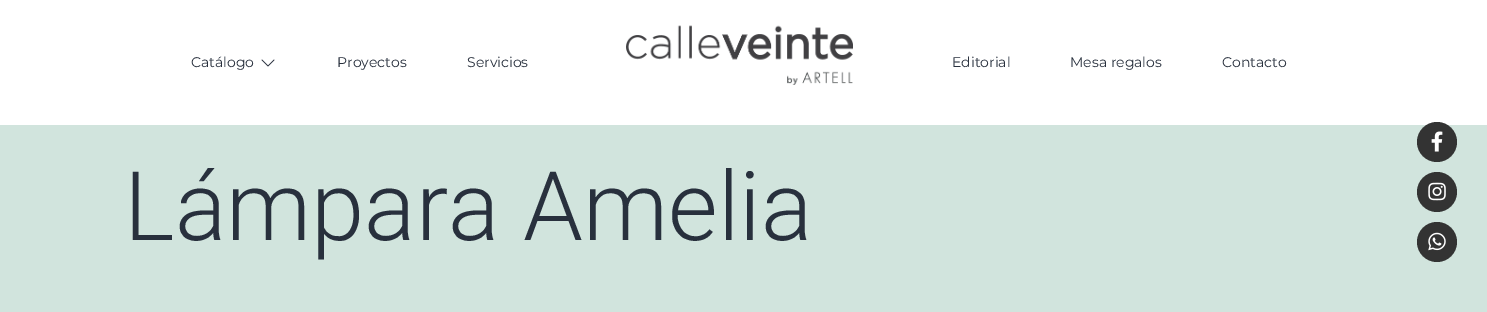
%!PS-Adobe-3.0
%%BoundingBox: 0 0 1487 312
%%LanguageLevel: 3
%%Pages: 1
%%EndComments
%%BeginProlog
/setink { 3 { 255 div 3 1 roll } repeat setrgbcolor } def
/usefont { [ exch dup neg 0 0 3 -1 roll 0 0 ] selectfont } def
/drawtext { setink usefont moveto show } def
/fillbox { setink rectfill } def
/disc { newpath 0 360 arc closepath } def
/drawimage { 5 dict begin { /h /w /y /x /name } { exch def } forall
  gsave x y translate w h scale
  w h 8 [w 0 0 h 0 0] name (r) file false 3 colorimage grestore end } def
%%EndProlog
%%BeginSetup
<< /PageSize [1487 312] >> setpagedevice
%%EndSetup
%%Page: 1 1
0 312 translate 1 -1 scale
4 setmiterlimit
0 0 1487 312 209 228 221 fillbox
0 0 1487 125 255 255 255 fillbox
(Catálogo) 191 67 /Montserrat-Regular 14 40 48 61 drawtext
(assets/img1.rgb) 261 59 14 8 drawimage
(Proyectos) 337 67 /Montserrat-Regular 14 40 48 61 drawtext
(Servicios) 467 67 /Montserrat-Regular 14 40 48 61 drawtext
(assets/img2.rgb) 626 25 227 60 drawimage
51 51 51 setink
1437 142 20 disc fill
(assets/img3.rgb) 1431 131 12 21 drawimage
1437 192 20 disc fill
(assets/img4.rgb) 1428 182 18 19 drawimage
1437 242 20 disc fill
(assets/img5.rgb) 1428 232 18 19 drawimage
(Editorial) 952 67 /Montserrat-Regular 14 40 48 61 drawtext
(Mesa regalos) 1070 67 /Montserrat-Regular 14 40 48 61 drawtext
(Contacto) 1222 67 /Montserrat-Regular 14 40 48 61 drawtext
(Lámpara Amelia) 124 240 /Roboto-Light 96 40 48 61 drawtext
showpage
%%EOF
